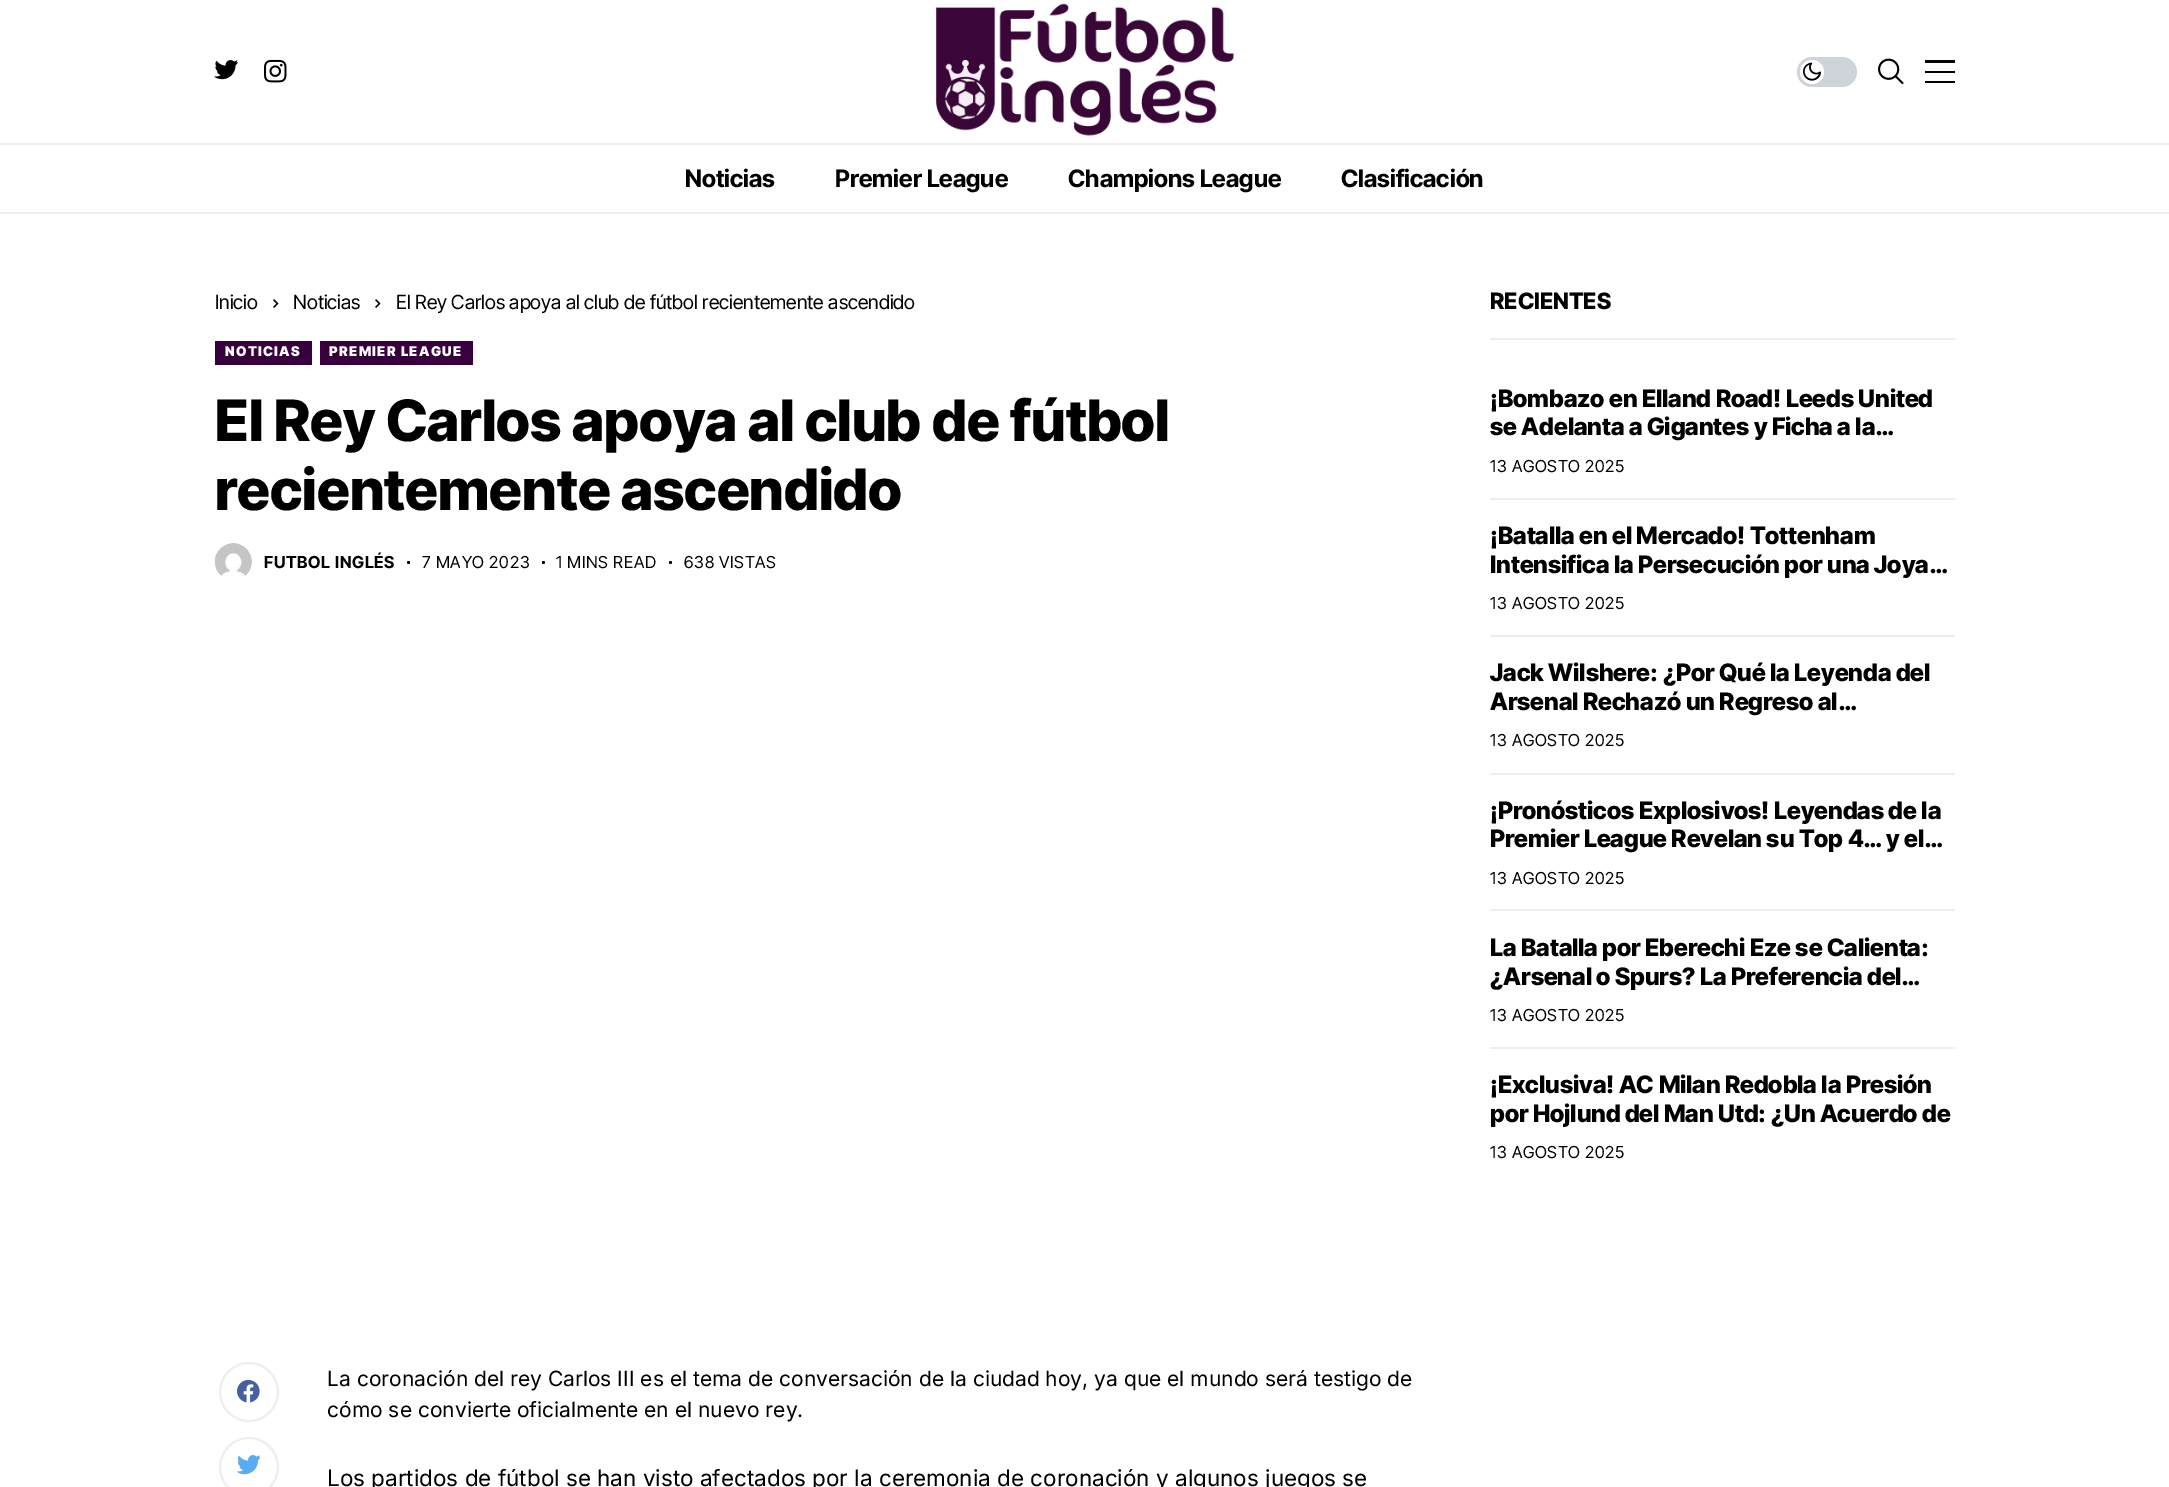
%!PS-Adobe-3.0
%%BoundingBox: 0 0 2169 1487
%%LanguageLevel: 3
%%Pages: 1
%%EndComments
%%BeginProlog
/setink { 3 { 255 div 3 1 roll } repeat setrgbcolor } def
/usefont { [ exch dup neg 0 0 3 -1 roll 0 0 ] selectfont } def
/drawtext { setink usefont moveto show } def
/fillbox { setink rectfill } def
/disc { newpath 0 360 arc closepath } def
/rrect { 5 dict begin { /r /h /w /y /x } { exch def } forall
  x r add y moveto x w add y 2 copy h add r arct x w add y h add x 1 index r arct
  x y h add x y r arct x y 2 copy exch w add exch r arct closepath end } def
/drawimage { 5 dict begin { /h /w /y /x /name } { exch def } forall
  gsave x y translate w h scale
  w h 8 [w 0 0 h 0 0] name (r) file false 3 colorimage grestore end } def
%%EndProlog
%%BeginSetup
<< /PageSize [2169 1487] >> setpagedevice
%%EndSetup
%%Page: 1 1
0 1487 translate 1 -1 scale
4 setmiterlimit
0 0 2169 1487 255 255 255 fillbox
(assets/img1.rgb) 214 60 24 20 drawimage
(assets/img2.rgb) 264 59 23 24 drawimage
(assets/img3.rgb) 936 3 298 133 drawimage
206 212 218 setink
1797 57 60 30 15 rrect fill
255 255 255 setink
1812 72 12 disc fill
(assets/img4.rgb) 1803 62 18 19 drawimage
(assets/img5.rgb) 1878 58 26 27 drawimage
1925 60 30 3 0 0 0 fillbox
1925 71 30 2 0 0 0 fillbox
1925 81 30 2 0 0 0 fillbox
0 143 2169 2 238 238 238 fillbox
0 212 2169 2 238 238 238 fillbox
(Noticias) 685 187 /InterTight-Bold 24 0 0 0 drawtext
(Premier League) 835 187 /InterTight-Bold 24 0 0 0 drawtext
(Champions League) 1068 187 /InterTight-Bold 24 0 0 0 drawtext
(Clasificación) 1341 187 /InterTight-Bold 24 0 0 0 drawtext
(Inicio) 215 309 /InterTight-Regular 19.5 0 0 0 drawtext
(assets/img6.rgb) 273 299 6 9 drawimage
(Noticias) 293 309 /InterTight-Regular 19.5 0 0 0 drawtext
(assets/img6.rgb) 375 299 6 9 drawimage
(El Rey Carlos apoya al club de fútbol recientemente ascendido) 396 309 /InterTight-Regular 19.5 0 0 0 drawtext
215 341 97 24 55 0 60 fillbox
/InterTight-Black 13.5 usefont
255 255 255 setink
225 356 moveto 1.4 0 (NOTICIAS) ashow
320 341 153 24 55 0 60 fillbox
255 255 255 setink
329 356 moveto 1.4 0 (PREMIER LEAGUE) ashow
(El Rey Carlos apoya al club de fútbol) 215 441 /InterTight-ExtraBold 57 0 0 0 drawtext
(recientemente ascendido) 215 510 /InterTight-ExtraBold 57 0 0 0 drawtext
(assets/img7.rgb) 214 543 38 34 drawimage
/InterTight-Bold 16.5 usefont
264 568 moveto 0.7 0 (FUTBOL INGLÉS) ashow
408.5 562.5 1.5 disc fill
/InterTight-Regular 16.5 usefont
422 568 moveto 0.7 0 (7 MAYO 2023) ashow
543.5 562.5 1.5 disc fill
556 568 moveto 0.7 0 (1 MINS READ) ashow
670.5 562.5 1.5 disc fill
684 568 moveto 0.7 0 (638 VISTAS) ashow
238 238 238 setink
2 setlinewidth
249 1392 29 disc stroke
(assets/img8.rgb) 237 1379 23 24 drawimage
249 1467 29 disc stroke
(assets/img9.rgb) 237 1455 24 20 drawimage
(La coronación del rey Carlos III es el tema de conversación de la ciudad hoy, ya que el mundo será testigo de) 327 1386 /Inter-Regular 21 0 0 0 drawtext
(cómo se convierte oficialmente en el nuevo rey.) 327 1417 /Inter-Regular 21 0 0 0 drawtext
(Los partidos de fútbol se han visto afectados por la ceremonia de coronación y algunos juegos se) 327 1486 /Inter-Regular 22.5 0 0 0 drawtext
1490 338 465 2 238 238 238 fillbox
(RECIENTES) 1490 309 /InterTight-ExtraBold 22.5 0 0 0 drawtext
(¡Bombazo en Elland Road! Leeds United) 1490 407 /InterTight-ExtraBold 24 0 0 0 drawtext
(se Adelanta a Gigantes y Ficha a la…) 1490 435 /InterTight-ExtraBold 24 0 0 0 drawtext
/InterTight-Regular 16.5 usefont
1490 472 moveto 0.7 0 (13 AGOSTO 2025) ashow
1490 498 465 2 238 238 238 fillbox
(¡Batalla en el Mercado! Tottenham) 1490 544 /InterTight-ExtraBold 24 0 0 0 drawtext
(Intensifica la Persecución por una Joya…) 1490 573 /InterTight-ExtraBold 24 0 0 0 drawtext
/InterTight-Regular 16.5 usefont
1490 609 moveto 0.7 0 (13 AGOSTO 2025) ashow
1490 635 465 2 238 238 238 fillbox
gsave
1490 659 465 58 rectclip
(Jack Wilshere: ¿Por Qué la Leyenda del) 1490 681 /InterTight-ExtraBold 24 0 0 0 drawtext
grestore
(Arsenal Rechazó un Regreso al…) 1490 710 /InterTight-ExtraBold 24 0 0 0 drawtext
/InterTight-Regular 16.5 usefont
1490 746 moveto 0.7 0 (13 AGOSTO 2025) ashow
1490 773 465 2 238 238 238 fillbox
(¡Pronósticos Explosivos! Leyendas de la) 1490 819 /InterTight-ExtraBold 24 0 0 0 drawtext
(Premier League Revelan su Top 4… y el…) 1490 847 /InterTight-ExtraBold 24 0 0 0 drawtext
/InterTight-Regular 16.5 usefont
1490 884 moveto 0.7 0 (13 AGOSTO 2025) ashow
1490 909 465 2 238 238 238 fillbox
(La Batalla por Eberechi Eze se Calienta:) 1490 956 /InterTight-ExtraBold 24 0 0 0 drawtext
(¿Arsenal o Spurs? La Preferencia del…) 1490 985 /InterTight-ExtraBold 24 0 0 0 drawtext
/InterTight-Regular 16.5 usefont
1490 1021 moveto 0.7 0 (13 AGOSTO 2025) ashow
1490 1047 465 2 238 238 238 fillbox
(¡Exclusiva! AC Milan Redobla la Presión) 1490 1093 /InterTight-ExtraBold 24 0 0 0 drawtext
(por Hojlund del Man Utd: ¿Un Acuerdo de) 1490 1122 /InterTight-ExtraBold 24 0 0 0 drawtext
/InterTight-Regular 16.5 usefont
1490 1158 moveto 0.7 0 (13 AGOSTO 2025) ashow
showpage
%%EOF
